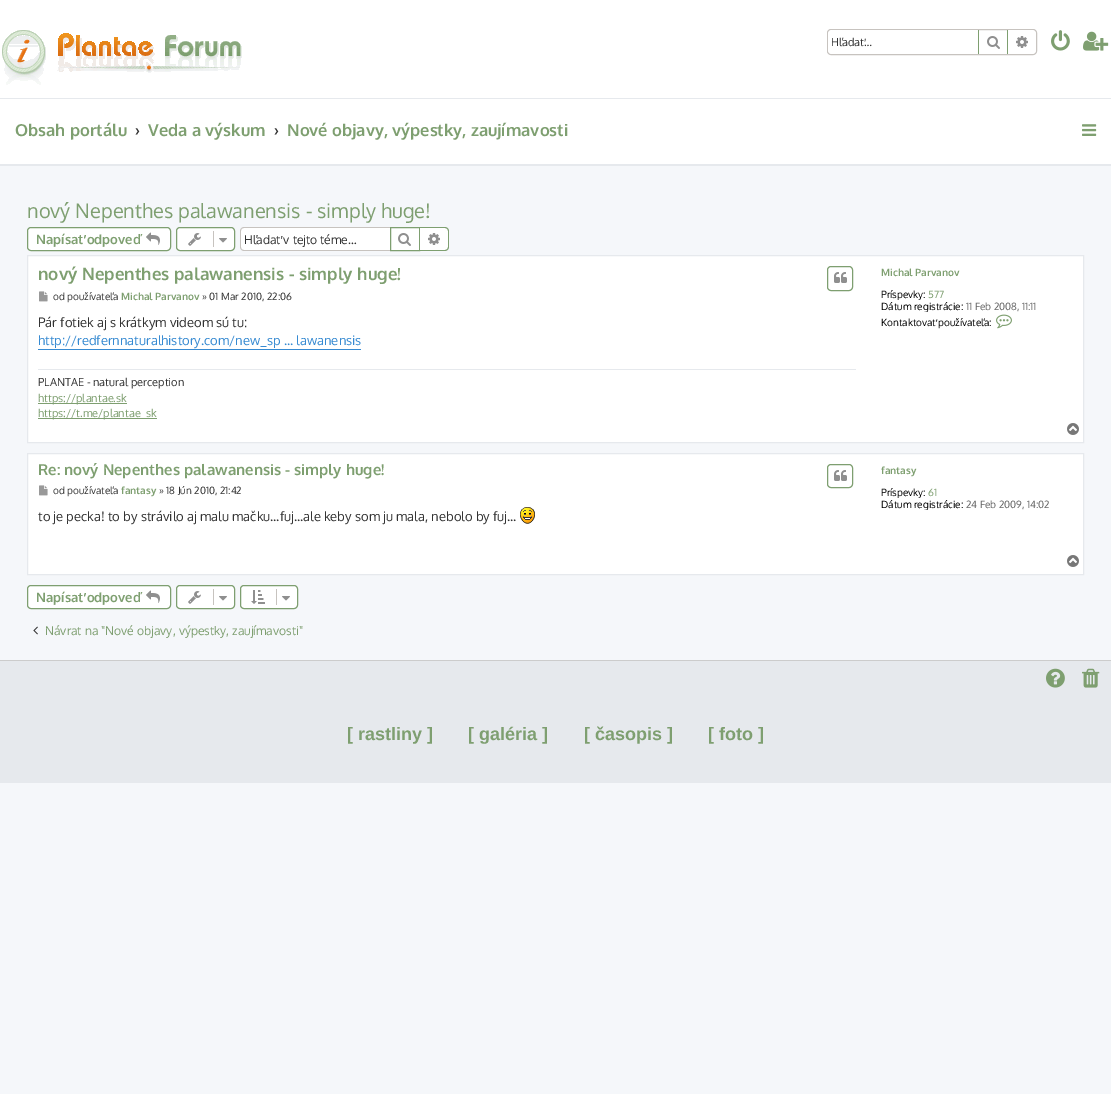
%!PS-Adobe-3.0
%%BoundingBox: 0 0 1111 1094
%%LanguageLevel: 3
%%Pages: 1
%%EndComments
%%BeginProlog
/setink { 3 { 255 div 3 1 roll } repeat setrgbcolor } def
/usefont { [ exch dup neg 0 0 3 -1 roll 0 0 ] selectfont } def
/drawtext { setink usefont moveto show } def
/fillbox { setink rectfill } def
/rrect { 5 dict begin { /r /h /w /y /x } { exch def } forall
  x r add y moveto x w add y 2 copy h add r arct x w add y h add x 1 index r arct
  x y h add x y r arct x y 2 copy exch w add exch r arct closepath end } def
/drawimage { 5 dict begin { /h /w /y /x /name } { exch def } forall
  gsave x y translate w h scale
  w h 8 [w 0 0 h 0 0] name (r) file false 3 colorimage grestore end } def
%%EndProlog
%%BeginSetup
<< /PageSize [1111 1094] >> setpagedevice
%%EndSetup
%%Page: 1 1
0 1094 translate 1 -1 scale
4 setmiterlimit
0 0 1111 1094 245 247 250 fillbox
0 0 1111 98 255 255 255 fillbox
0 98 1111 1 230 233 237 fillbox
(assets/img1.rgb) 2 30 240 55 drawimage
199 195 191 setink
827.5 29.5 209 25 3.5 rrect stroke
255 255 255 setink
832 30 moveto 978 30 lineto 978 54 lineto 832 54 lineto 830 54 828 52 828 50 curveto 828 34 lineto 828 32 830 30 832 30 curveto closepath fill
(Hľadať…) 831 46 /Oxygen-Regular 11 51 51 51 drawtext
1007 30 1 24 126 159 112 fillbox
978 30 1 24 126 159 112 fillbox
(assets/img2.rgb) 987 36 13 13 drawimage
255 255 255 setink
1008 30 moveto 1032 30 lineto 1034 30 1036 32 1036 34 curveto 1036 50 lineto 1036 52 1034 54 1032 54 curveto 1008 54 lineto closepath fill
(assets/img3.rgb) 1016 36 12 12 drawimage
(assets/img4.rgb) 1051 30 19 21 drawimage
(assets/img5.rgb) 1083 31 26 20 drawimage
0 99 1111 65 255 255 255 fillbox
0 164 1111 2 230 233 237 fillbox
(Obsah portálu) 15 136 /Oxygen-Bold 16.5 126 159 112 drawtext
(›) 135 136 /Oxygen-Bold 16.5 51 51 51 drawtext
(Veda a výskum) 148 136 /Oxygen-Bold 16.5 126 159 112 drawtext
(›) 274 136 /Oxygen-Bold 16.5 51 51 51 drawtext
(Nové objavy, výpestky, zaujímavosti) 287 136 /Oxygen-Bold 16.5 126 159 112 drawtext
(assets/img6.rgb) 1082 124 15 12 drawimage
(nový Nepenthes palawanensis - simply huge!) 27 218 /Oxygen-Regular 20 126 159 112 drawtext
255 255 255 setink
27.5 227.5 143 23 3.5 rrect gsave fill grestore
126 159 112 setink
stroke
(Napísať odpove) 36 244 /Oxygen-Bold 13 126 159 112 drawtext
(ď) 133 244 /OpenSans-SemiBold 13 126 159 112 drawtext
(assets/img7.rgb) 146 232 14 13 drawimage
255 255 255 setink
176.5 227.5 58 23 3.5 rrect gsave fill grestore
126 159 112 setink
stroke
(assets/img8.rgb) 188 233 13 13 drawimage
213 231 1 16 199 195 191 fillbox
(assets/img9.rgb) 219 238 8 5 drawimage
255 255 255 setink
244 228 moveto 390 228 lineto 390 250 lineto 244 250 lineto 242.5 250 241 248.5 241 247 curveto 241 231 lineto 241 229.5 242.5 228 244 228 curveto closepath fill
199 195 191 setink
244 227 moveto 390 227 lineto 390 251 lineto 244 251 lineto 242 251 240 249 240 247 curveto 240 231 lineto 240 229 242 227 244 227 curveto closepath 244 228 moveto 390 228 lineto 390 250 lineto 244 250 lineto 242 250 241 249 241 247 curveto 241 231 lineto 241 229 242 228 244 228 curveto closepath eofill
(Hľadať v tejto téme…) 244 244 /Oxygen-Regular 12.1 51 51 51 drawtext
255 255 255 setink
390.5 227.5 moveto 419.5 227.5 lineto 419.5 250.5 lineto 390.5 250.5 lineto closepath gsave fill grestore
126 159 112 setink
stroke
(assets/img2.rgb) 398 233 13 13 drawimage
255 255 255 setink
420 228 moveto 445 228 lineto 446.5 228 448 229.5 448 231 curveto 448 247 lineto 448 248.5 446.5 250 445 250 curveto 420 250 lineto closepath fill
126 159 112 setink
420 227 moveto 445 227 lineto 447 227 449 229 449 231 curveto 449 247 lineto 449 249 447 251 445 251 curveto 420 251 lineto closepath 420 228 moveto 445 228 lineto 446.5 228 448 229.5 448 231 curveto 448 247 lineto 448 248.5 446.5 250 445 250 curveto 420 250 lineto closepath eofill
(assets/img3.rgb) 428 233 12 12 drawimage
255 255 255 setink
27.5 255.5 moveto 1083.5 255.5 lineto 1083.5 442.5 lineto 27.5 442.5 lineto closepath gsave fill grestore
230 233 237 setink
stroke
(nový Nepenthes palawanensis - simply huge!) 38 280 /Oxygen-Bold 17 126 159 112 drawtext
827.5 266.5 25 24 3.5 rrect stroke
(assets/img10.rgb) 834 272 13 11 drawimage
(assets/img11.rgb) 39 291 9 11 drawimage
(od používateľa) 53 300 /Oxygen-Regular 10 51 51 51 drawtext
(Michal Parvanov) 121 300 /Oxygen-Bold 10 126 159 112 drawtext
(» 01 Mar 2010, 22:06) 202 300 /Oxygen-Regular 10 51 51 51 drawtext
(Pár fotiek aj s krátkym videom sú tu:) 38 327 /Oxygen-Regular 13 51 51 51 drawtext
38 349 323 1 54 138 210 fillbox
(http://redfernnaturalhistory.com/new_sp ... lawanensis) 38 345 /Oxygen-Regular 13 54 138 210 drawtext
38 369 818 1 230 233 237 fillbox
(PLANTAE - natural perception) 38 386 /Oxygen-Regular 11 51 51 51 drawtext
38 403 89 1 126 159 112 fillbox
(https://plantae.sk) 38 402 /Oxygen-Regular 11 126 159 112 drawtext
38 418 119 1 126 159 112 fillbox
(https://t.me/plantae_sk) 38 417 /Oxygen-Regular 11 126 159 112 drawtext
(Michal Parvanov) 881 276 /Oxygen-Bold 10 126 159 112 drawtext
gsave
881 288 192 12 rectclip
(Príspevky:) 881 298 /Oxygen-Regular 10 0 0 0 drawtext
grestore
(577) 928 298 /Oxygen-Regular 10 126 159 112 drawtext
gsave
881 300 192 12 rectclip
(Dátum registrácie:) 881 310 /Oxygen-Regular 10 0 0 0 drawtext
grestore
(11 Feb 2008, 11:11) 966 310 /Oxygen-Regular 10 102 102 102 drawtext
(Kontaktovať používateľa:) 881 326 /Oxygen-Regular 10 0 0 0 drawtext
(assets/img12.rgb) 996 314 16 15 drawimage
(assets/img13.rgb) 1067 423 12 12 drawimage
255 255 255 setink
27.5 453.5 moveto 1083.5 453.5 lineto 1083.5 574.5 lineto 27.5 574.5 lineto closepath gsave fill grestore
230 233 237 setink
stroke
(Re: nový Nepenthes palawanensis - simply huge!) 38 475 /Oxygen-Bold 15 126 159 112 drawtext
827.5 464.5 25 23 3.5 rrect stroke
(assets/img10.rgb) 834 470 13 11 drawimage
(assets/img11.rgb) 39 485 9 11 drawimage
(od používateľa) 53 494 /Oxygen-Regular 10 51 51 51 drawtext
(fantasy) 121 494 /Oxygen-Bold 10 126 159 112 drawtext
(» 18 Jún 2010, 21:42) 159 494 /Oxygen-Regular 10 51 51 51 drawtext
(to je pecka! to by strávilo aj malu mačku...fuj...ale keby som ju mala, nebolo by fuj...) 38 521 /Oxygen-Regular 13 51 51 51 drawtext
(assets/img14.rgb) 520 507 15 17 drawimage
(fantasy) 881 474 /Oxygen-Bold 10 126 159 112 drawtext
gsave
881 486 192 12 rectclip
(Príspevky:) 881 496 /Oxygen-Regular 10 0 0 0 drawtext
grestore
(61) 928 496 /Oxygen-Regular 10 126 159 112 drawtext
gsave
881 498 192 12 rectclip
(Dátum registrácie:) 881 508 /Oxygen-Regular 10 0 0 0 drawtext
grestore
(24 Feb 2009, 14:02) 966 508 /Oxygen-Regular 10 102 102 102 drawtext
(assets/img13.rgb) 1067 555 12 12 drawimage
255 255 255 setink
27.5 585.5 143 23 3.5 rrect gsave fill grestore
126 159 112 setink
stroke
(Napísať odpove) 36 602 /Oxygen-Bold 13 126 159 112 drawtext
(ď) 133 602 /OpenSans-SemiBold 13 126 159 112 drawtext
(assets/img7.rgb) 146 590 14 13 drawimage
255 255 255 setink
176.5 585.5 58 23 3.5 rrect gsave fill grestore
126 159 112 setink
stroke
(assets/img8.rgb) 188 591 13 13 drawimage
213 589 1 16 199 195 191 fillbox
(assets/img9.rgb) 219 596 8 5 drawimage
255 255 255 setink
240.5 585.5 57 23 3.5 rrect gsave fill grestore
126 159 112 setink
stroke
(assets/img15.rgb) 251 590 14 14 drawimage
276 589 1 16 199 195 191 fillbox
(assets/img9.rgb) 282 596 8 5 drawimage
(assets/img16.rgb) 33 626 5 9 drawimage
(Návrat na "Nové objavy, výpestky, zaujímavosti") 45 635 /Oxygen-Regular 12.1 126 159 112 drawtext
0 661 1111 122 230 233 237 fillbox
0 660 1111 1 204 204 204 fillbox
(assets/img17.rgb) 1046 668 19 20 drawimage
(assets/img18.rgb) 1082 668 18 20 drawimage
([ rastliny ]) 347 740 /LiberationSans-Bold 18 126 159 112 drawtext
([ galéria ]) 468 740 /LiberationSans-Bold 18 126 159 112 drawtext
([ časopis ]) 584 740 /LiberationSans-Bold 18 126 159 112 drawtext
([ foto ]) 708 740 /LiberationSans-Bold 18 126 159 112 drawtext
showpage
%%EOF
